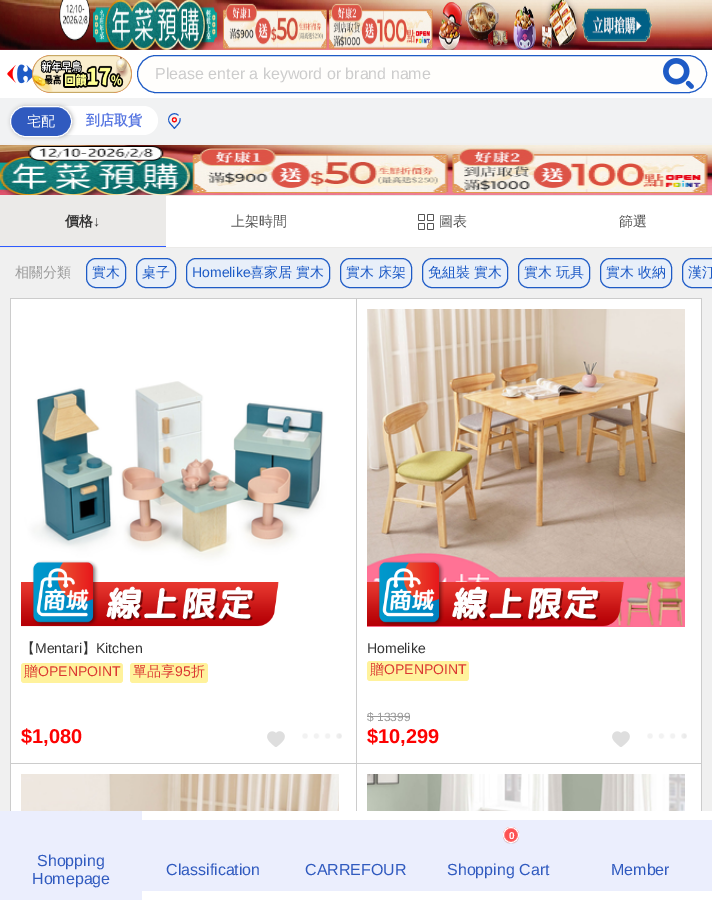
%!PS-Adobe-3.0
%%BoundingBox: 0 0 712 900
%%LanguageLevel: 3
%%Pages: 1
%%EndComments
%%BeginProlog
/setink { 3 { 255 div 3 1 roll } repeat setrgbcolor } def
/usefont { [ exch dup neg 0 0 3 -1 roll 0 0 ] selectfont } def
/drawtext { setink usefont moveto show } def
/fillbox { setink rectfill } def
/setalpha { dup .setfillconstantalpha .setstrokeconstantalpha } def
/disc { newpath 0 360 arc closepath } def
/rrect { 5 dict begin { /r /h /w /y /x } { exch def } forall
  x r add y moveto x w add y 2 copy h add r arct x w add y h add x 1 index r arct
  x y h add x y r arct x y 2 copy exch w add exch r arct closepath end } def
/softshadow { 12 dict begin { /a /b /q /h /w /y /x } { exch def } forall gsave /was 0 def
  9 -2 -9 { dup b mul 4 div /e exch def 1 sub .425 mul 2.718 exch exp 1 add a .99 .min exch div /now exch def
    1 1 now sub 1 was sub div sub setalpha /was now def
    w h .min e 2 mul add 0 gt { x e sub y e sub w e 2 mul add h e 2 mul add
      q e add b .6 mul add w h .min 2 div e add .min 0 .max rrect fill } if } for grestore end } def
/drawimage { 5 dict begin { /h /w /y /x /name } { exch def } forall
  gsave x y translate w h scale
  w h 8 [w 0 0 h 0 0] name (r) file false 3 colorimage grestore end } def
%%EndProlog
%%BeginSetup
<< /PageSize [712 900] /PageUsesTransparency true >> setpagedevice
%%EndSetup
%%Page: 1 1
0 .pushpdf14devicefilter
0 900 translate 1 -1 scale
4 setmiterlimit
0 0 712 900 240 240 240 fillbox
0 49 712 49 255 255 255 fillbox
(assets/img1.rgb) 0 0 712 50 drawimage
(assets/img2.rgb) 7 64 28 20 drawimage
252 100 46 setink
32 55 100 38 19 rrect fill
(assets/img3.rgb) 32 55 100 38 drawimage
255 254 252 setink
137.5 55.5 569 37 18.5 rrect gsave fill grestore
30 91 198 setink
stroke
(Please enter a keyword or brand name) 155 79 /LiberationSans-Regular 16 204 204 204 drawtext
(assets/img4.rgb) 663 58 31 31 drawimage
0 98 712 45 241 242 243 fillbox
255 255 255 setink
10 106 148 29 14.5 rrect fill
0 0 0 setink
11 106 62 31 15.5 2 0.25 softshadow
48 90 191 setink
10.5 106.5 61 30 15 rrect gsave fill grestore
255 255 255 setink
stroke
(宅配) 27 126 /WenQuanYiZenHei-Medium 14 255 255 255 drawtext
(到店取貨) 86 125 /WenQuanYiZenHei-Bold 14 88 119 225 drawtext
(assets/img5.rgb) 168 113 13 16 drawimage
(assets/img6.rgb) 0 145 712 50 drawimage
255 255 255 setink
0 195 712 53 3 rrect fill
0 195 712 1 235 234 232 fillbox
0 247 712 1 235 234 232 fillbox
0 196 166 50 235 234 232 fillbox
0 246 166 1 46 91 255 fillbox
(價格) 65 226 /WenQuanYiZenHei-Bold 14 51 51 51 drawtext
(↓) 93 226 /LiberationSans-Bold 14 51 51 51 drawtext
(上架時間) 231 226 /WenQuanYiZenHei-Medium 14 85 85 85 drawtext
(assets/img7.rgb) 418 214 16 16 drawimage
(圖表) 439 226 /WenQuanYiZenHei-Medium 14 85 85 85 drawtext
(篩選) 619 226 /WenQuanYiZenHei-Medium 14 85 85 85 drawtext
(相關分類) 15 277 /WenQuanYiZenHei-Medium 14 153 153 153 drawtext
232 239 249 setink
86.5 258.5 39 29 9.5 rrect gsave fill grestore
30 91 198 setink
stroke
(實木) 92 277 /WenQuanYiZenHei-Medium 14 30 91 198 drawtext
232 239 249 setink
136.5 258.5 39 29 9.5 rrect gsave fill grestore
30 91 198 setink
stroke
(桌子) 142 277 /WenQuanYiZenHei-Medium 14 30 91 198 drawtext
232 239 249 setink
186.5 258.5 143 29 9.5 rrect gsave fill grestore
30 91 198 setink
stroke
(Homelike) 192 277 /LiberationSans-Regular 14 30 91 198 drawtext
(喜家居 實木) 250 277 /WenQuanYiZenHei-Medium 14 30 91 198 drawtext
232 239 249 setink
340.5 258.5 71 29 9.5 rrect gsave fill grestore
30 91 198 setink
stroke
(實木 床架) 346 277 /WenQuanYiZenHei-Medium 14 30 91 198 drawtext
232 239 249 setink
422.5 258.5 85 29 9.5 rrect gsave fill grestore
30 91 198 setink
stroke
(免組裝 實木) 428 277 /WenQuanYiZenHei-Medium 14 30 91 198 drawtext
232 239 249 setink
518.5 258.5 71 29 9.5 rrect gsave fill grestore
30 91 198 setink
stroke
(實木 玩具) 524 277 /WenQuanYiZenHei-Medium 14 30 91 198 drawtext
232 239 249 setink
600.5 258.5 71 29 9.5 rrect gsave fill grestore
30 91 198 setink
stroke
(實木 收納) 606 277 /WenQuanYiZenHei-Medium 14 30 91 198 drawtext
232 239 249 setink
692 258 moveto 712 258 lineto 712 288 lineto 692 288 lineto 686.5 288 682 283.5 682 278 curveto 682 268 lineto 682 262.5 686.5 258 692 258 curveto closepath fill
30 91 198 setink
682.5 258.5 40 29 9.5 rrect stroke
(漢汀) 688 277 /WenQuanYiZenHei-Medium 14 30 91 198 drawtext
10 298 692 1 204 204 204 fillbox
10 298 1 513 204 204 204 fillbox
11 299 345 464 255 255 255 fillbox
356 299 1 512 204 204 204 fillbox
11 763 346 1 204 204 204 fillbox
(assets/img8.rgb) 21 309 318 318 drawimage
(assets/img9.rgb) 21 560 258 67 drawimage
(【) 21 653 /WenQuanYiZenHei-Medium 14 51 51 51 drawtext
(Mentari) 35 653 /LiberationSans-Regular 14 51 51 51 drawtext
(】) 82 653 /WenQuanYiZenHei-Medium 14 51 51 51 drawtext
(Kitchen) 96 653 /LiberationSans-Regular 14 51 51 51 drawtext
255 242 156 setink
21 663 102 20 3 rrect fill
(贈) 24 676 /WenQuanYiZenHei-Medium 14 219 56 50 drawtext
(OPENPOINT) 38 676 /LiberationSans-Regular 14 219 56 50 drawtext
255 242 156 setink
130 663 78 20 3 rrect fill
(單品享) 133 676 /WenQuanYiZenHei-Medium 14 219 56 50 drawtext
(95) 175 676 /LiberationSans-Regular 14 219 56 50 drawtext
(折) 191 676 /WenQuanYiZenHei-Medium 14 219 56 50 drawtext
($1,080) 21 743 /LiberationSans-Bold 20 253 2 2 drawtext
(assets/img10.rgb) 267 731 18 16 drawimage
(assets/img11.rgb) 302 733 40 6 drawimage
357 299 344 464 255 255 255 fillbox
701 299 1 512 204 204 204 fillbox
357 763 345 1 204 204 204 fillbox
(assets/img12.rgb) 367 309 318 318 drawimage
(assets/img13.rgb) 367 560 257 67 drawimage
(Homelike) 367 653 /LiberationSans-Regular 14 51 51 51 drawtext
255 242 156 setink
367 661 102 20 3 rrect fill
(贈) 370 674 /WenQuanYiZenHei-Medium 14 219 56 50 drawtext
(OPENPOINT) 384 674 /LiberationSans-Regular 14 219 56 50 drawtext
($ 13399) 367 721 /LiberationSans-Regular 12 153 153 153 drawtext
367 716 43 1 153 153 153 fillbox
($10,299) 367 743 /LiberationSans-Bold 20 253 2 2 drawtext
(assets/img10.rgb) 612 731 18 16 drawimage
(assets/img11.rgb) 647 733 40 6 drawimage
11 764 345 47 255 255 255 fillbox
(assets/img14.rgb) 21 774 318 37 drawimage
357 764 344 47 255 255 255 fillbox
(assets/img15.rgb) 367 774 318 37 drawimage
142 811 570 89 255 255 255 fillbox
0 811 142 89 235 238 253 fillbox
(Shopping) 37 866 /LiberationSans-Regular 16 48 90 191 drawtext
(Homepage) 32 884 /LiberationSans-Regular 16 48 90 191 drawtext
142 820 570 71 235 238 253 fillbox
(Classification) 166 875 /LiberationSans-Regular 16 48 90 191 drawtext
(CARREFOUR) 305 875 /LiberationSans-Regular 16 48 90 191 drawtext
207 209 223 setink
503 835.5 moveto 502.5 846.5 519.5 846.5 519 835.5 curveto 518.5 845.5 503.5 845.5 503 835.5 curveto closepath fill
253 81 81 setink
511 835 8 disc fill
253 98 98 setink
511 835 6.5 disc stroke
255 255 255 setink
511 835 7.5 disc stroke
(0) 509 839 /LiberationSans-Bold 10 255 255 255 drawtext
(Shopping Cart) 447 875 /LiberationSans-Regular 16 48 90 191 drawtext
(Member) 611 875 /LiberationSans-Regular 16 48 90 191 drawtext
.poppdf14devicefilter showpage
%%EOF
